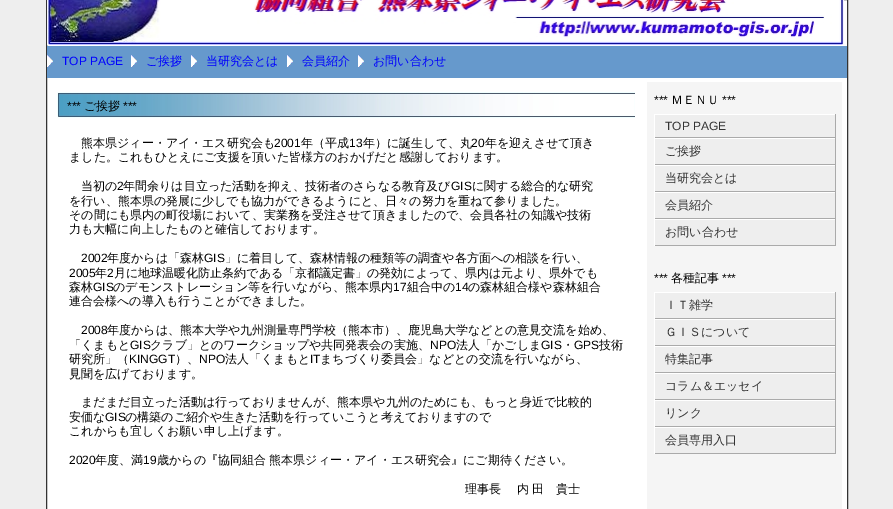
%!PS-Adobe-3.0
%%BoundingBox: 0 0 893 509
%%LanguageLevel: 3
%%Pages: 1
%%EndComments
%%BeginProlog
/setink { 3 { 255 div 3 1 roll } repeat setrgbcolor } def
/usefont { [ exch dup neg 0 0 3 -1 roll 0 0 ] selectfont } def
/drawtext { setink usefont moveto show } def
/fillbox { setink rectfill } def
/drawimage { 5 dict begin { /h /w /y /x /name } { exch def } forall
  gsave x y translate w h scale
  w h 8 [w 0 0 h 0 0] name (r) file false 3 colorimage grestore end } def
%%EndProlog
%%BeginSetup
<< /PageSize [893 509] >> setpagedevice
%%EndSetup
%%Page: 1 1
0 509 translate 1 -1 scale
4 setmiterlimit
0 0 893 509 238 238 238 fillbox
255 255 255 setink
46.5 -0.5 moveto 847.5 -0.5 lineto 847.5 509.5 lineto 46.5 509.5 lineto closepath gsave fill grestore
51 51 51 setink
stroke
(assets/img1.rgb) 47 0 797 45 drawimage
47 46 800 32 102 153 204 fillbox
(assets/img2.rgb) 47 55 6 12 drawimage
(TOP PAGE) 62 65 /LiberationSans-Regular 12 0 0 255 drawtext
(assets/img2.rgb) 131 55 6 12 drawimage
(ご挨拶) 146 65 /WenQuanYiZenHei-Medium 12 0 0 255 drawtext
(assets/img2.rgb) 191 55 6 12 drawimage
(当研究会とは) 206 65 /WenQuanYiZenHei-Medium 12 0 0 255 drawtext
(assets/img2.rgb) 287 55 6 12 drawimage
(会員紹介) 302 65 /WenQuanYiZenHei-Medium 12 0 0 255 drawtext
(assets/img2.rgb) 358 55 6 12 drawimage
(お問い合わせ) 373 65 /WenQuanYiZenHei-Medium 12 0 0 255 drawtext
647 82 195 427 245 245 245 fillbox
(assets/img3.rgb) 57 92 578 26 drawimage
(***) 67 110 /LiberationSans-Regular 12 0 0 0 drawtext
(ご挨拶) 84 110 /WenQuanYiZenHei-Medium 12 0 0 0 drawtext
(***) 123 110 /LiberationSans-Regular 12 0 0 0 drawtext
(熊本県ジィー・アイ・エス研究会も) 81 147 /WenQuanYiZenHei-Medium 12 0 0 0 drawtext
(2001) 274 147 /LiberationSans-Regular 12 0 0 0 drawtext
(年（平成) 301 147 /WenQuanYiZenHei-Medium 12 0 0 0 drawtext
(13) 349 147 /LiberationSans-Regular 12 0 0 0 drawtext
(年）に誕生して、丸) 363 147 /WenQuanYiZenHei-Medium 12 0 0 0 drawtext
(20) 471 147 /LiberationSans-Regular 12 0 0 0 drawtext
(年を迎えさせて頂き) 485 147 /WenQuanYiZenHei-Medium 12 0 0 0 drawtext
(ました。これもひとえにご支援を頂いた皆様方のおかげだと感謝しております。) 69 161 /WenQuanYiZenHei-Medium 12 0 0 0 drawtext
(当初の) 81 190 /WenQuanYiZenHei-Medium 12 0 0 0 drawtext
(2) 117 190 /LiberationSans-Regular 12 0 0 0 drawtext
(年間余りは目立った活動を抑え、技術者のさらなる教育及び) 123 190 /WenQuanYiZenHei-Medium 12 0 0 0 drawtext
(GIS) 451 190 /LiberationSans-Regular 12 0 0 0 drawtext
(に関する総合的な研究) 472 190 /WenQuanYiZenHei-Medium 12 0 0 0 drawtext
(を行い、熊本県の発展に少しでも協力ができるようにと、日々の努力を重ねて参りました。) 69 205 /WenQuanYiZenHei-Medium 12 0 0 0 drawtext
(その間にも県内の町役場において、実業務を受注させて頂きましたので、会員各社の知識や技術) 69 219 /WenQuanYiZenHei-Medium 12 0 0 0 drawtext
(力も大幅に向上したものと確信しております。) 69 233 /WenQuanYiZenHei-Medium 12 0 0 0 drawtext
(2002) 81 262 /LiberationSans-Regular 12 0 0 0 drawtext
(年度からは「森林) 107 262 /WenQuanYiZenHei-Medium 12 0 0 0 drawtext
(GIS) 204 262 /LiberationSans-Regular 12 0 0 0 drawtext
(」に着目して、森林情報の種類等の調査や各方面への相談を行い、) 225 262 /WenQuanYiZenHei-Medium 12 0 0 0 drawtext
(2005) 69 277 /LiberationSans-Regular 12 0 0 0 drawtext
(年) 95 277 /WenQuanYiZenHei-Medium 12 0 0 0 drawtext
(2) 107 277 /LiberationSans-Regular 12 0 0 0 drawtext
(月に地球温暖化防止条約である「京都議定書」の発効によって、県内は元より、県外でも) 114 277 /WenQuanYiZenHei-Medium 12 0 0 0 drawtext
(森林) 69 291 /WenQuanYiZenHei-Medium 12 0 0 0 drawtext
(GIS) 93 291 /LiberationSans-Regular 12 0 0 0 drawtext
(のデモンストレーション等を行いながら、熊本県内) 113 291 /WenQuanYiZenHei-Medium 12 0 0 0 drawtext
(17) 393 291 /LiberationSans-Regular 12 0 0 0 drawtext
(組合中の) 407 291 /WenQuanYiZenHei-Medium 12 0 0 0 drawtext
(14) 455 291 /LiberationSans-Regular 12 0 0 0 drawtext
(の森林組合様や森林組合) 468 291 /WenQuanYiZenHei-Medium 12 0 0 0 drawtext
(連合会様への導入も行うことができました。) 69 305 /WenQuanYiZenHei-Medium 12 0 0 0 drawtext
(2008) 81 334 /LiberationSans-Regular 12 0 0 0 drawtext
(年度からは、熊本大学や九州測量専門学校（熊本市）、鹿児島大学などとの意見交流を始め、) 107 334 /WenQuanYiZenHei-Medium 12 0 0 0 drawtext
(「くまもと) 69 349 /WenQuanYiZenHei-Medium 12 0 0 0 drawtext
(GIS) 130 349 /LiberationSans-Regular 12 0 0 0 drawtext
(クラブ」とのワークショップや共同発表会の実施、) 150 349 /WenQuanYiZenHei-Medium 12 0 0 0 drawtext
(NPO) 430 349 /LiberationSans-Regular 12 0 0 0 drawtext
(法人「かごしま) 456 349 /WenQuanYiZenHei-Medium 12 0 0 0 drawtext
(GIS) 541 349 /LiberationSans-Regular 12 0 0 0 drawtext
(・) 562 349 /WenQuanYiZenHei-Medium 12 0 0 0 drawtext
(GPS) 574 349 /LiberationSans-Regular 12 0 0 0 drawtext
(技術) 599 349 /WenQuanYiZenHei-Medium 12 0 0 0 drawtext
(研究所」（) 69 363 /WenQuanYiZenHei-Medium 12 0 0 0 drawtext
(KINGGT) 129 363 /LiberationSans-Regular 12 0 0 0 drawtext
(）、) 175 363 /WenQuanYiZenHei-Medium 12 0 0 0 drawtext
(NPO) 199 363 /LiberationSans-Regular 12 0 0 0 drawtext
(法人「くまもと) 225 363 /WenQuanYiZenHei-Medium 12 0 0 0 drawtext
(IT) 310 363 /LiberationSans-Regular 12 0 0 0 drawtext
(まちづくり委員会」などとの交流を行いながら、) 320 363 /WenQuanYiZenHei-Medium 12 0 0 0 drawtext
(見聞を広げております。) 69 378 /WenQuanYiZenHei-Medium 12 0 0 0 drawtext
(まだまだ目立った活動は行っておりませんが、熊本県や九州のためにも、もっと身近で比較的) 81 406 /WenQuanYiZenHei-Medium 12 0 0 0 drawtext
(安価な) 69 421 /WenQuanYiZenHei-Medium 12 0 0 0 drawtext
(GIS) 105 421 /LiberationSans-Regular 12 0 0 0 drawtext
(の構築のご紹介や生きた活動を行っていこうと考えておりますので) 125 421 /WenQuanYiZenHei-Medium 12 0 0 0 drawtext
(これからも宜しくお願い申し上げます。) 69 435 /WenQuanYiZenHei-Medium 12 0 0 0 drawtext
(2020) 69 464 /LiberationSans-Regular 12 0 0 0 drawtext
(年度、満) 95 464 /WenQuanYiZenHei-Medium 12 0 0 0 drawtext
(19) 143 464 /LiberationSans-Regular 12 0 0 0 drawtext
(歳からの『協同組合 熊本県ジィー・アイ・エス研究会』にご期待ください。) 157 464 /WenQuanYiZenHei-Medium 12 0 0 0 drawtext
(理事長　 内 田　貴士) 465 493 /WenQuanYiZenHei-Medium 12 0 0 0 drawtext
(***) 654 104 /LiberationSans-Regular 12 0 0 0 drawtext
(ＭＥＮＵ) 671 104 /WenQuanYiZenHei-Medium 12 0 0 0 drawtext
(***) 722 104 /LiberationSans-Regular 12 0 0 0 drawtext
655 115 180 22 238 238 238 fillbox
654 114 182 1 255 255 255 fillbox
835 114 1 24 170 170 170 fillbox
654 137 182 1 170 170 170 fillbox
654 114 1 24 255 255 255 fillbox
(TOP PAGE) 665 130 /LiberationSans-Regular 12 51 51 51 drawtext
655 139 180 25 238 238 238 fillbox
654 138 182 1 255 255 255 fillbox
835 138 1 27 170 170 170 fillbox
654 164 182 1 170 170 170 fillbox
654 138 1 27 255 255 255 fillbox
(ご挨拶) 665 155 /WenQuanYiZenHei-Medium 12 51 51 51 drawtext
655 166 180 25 238 238 238 fillbox
654 165 182 1 255 255 255 fillbox
835 165 1 27 170 170 170 fillbox
654 191 182 1 170 170 170 fillbox
654 165 1 27 255 255 255 fillbox
(当研究会とは) 665 182 /WenQuanYiZenHei-Medium 12 51 51 51 drawtext
655 193 180 25 238 238 238 fillbox
654 192 182 1 255 255 255 fillbox
835 192 1 27 170 170 170 fillbox
654 218 182 1 170 170 170 fillbox
654 192 1 27 255 255 255 fillbox
(会員紹介) 665 209 /WenQuanYiZenHei-Medium 12 51 51 51 drawtext
655 220 180 25 238 238 238 fillbox
654 219 182 1 255 255 255 fillbox
835 219 1 27 170 170 170 fillbox
654 245 182 1 170 170 170 fillbox
654 219 1 27 255 255 255 fillbox
(お問い合わせ) 665 236 /WenQuanYiZenHei-Medium 12 51 51 51 drawtext
(***) 654 282 /LiberationSans-Regular 12 0 0 0 drawtext
(各種記事) 671 282 /WenQuanYiZenHei-Medium 12 0 0 0 drawtext
(***) 722 282 /LiberationSans-Regular 12 0 0 0 drawtext
655 293 180 25 238 238 238 fillbox
654 292 182 1 255 255 255 fillbox
835 292 1 27 170 170 170 fillbox
654 318 182 1 170 170 170 fillbox
654 292 1 27 255 255 255 fillbox
(ＩＴ雑学) 665 309 /WenQuanYiZenHei-Medium 12 51 51 51 drawtext
655 320 180 25 238 238 238 fillbox
654 319 182 1 255 255 255 fillbox
835 319 1 27 170 170 170 fillbox
654 345 182 1 170 170 170 fillbox
654 319 1 27 255 255 255 fillbox
(ＧＩＳについて) 665 336 /WenQuanYiZenHei-Medium 12 51 51 51 drawtext
655 347 180 25 238 238 238 fillbox
654 346 182 1 255 255 255 fillbox
835 346 1 27 170 170 170 fillbox
654 372 182 1 170 170 170 fillbox
654 346 1 27 255 255 255 fillbox
(特集記事) 665 363 /WenQuanYiZenHei-Medium 12 51 51 51 drawtext
655 374 180 25 238 238 238 fillbox
654 373 182 1 255 255 255 fillbox
835 373 1 27 170 170 170 fillbox
654 399 182 1 170 170 170 fillbox
654 373 1 27 255 255 255 fillbox
(コラム＆エッセイ) 665 390 /WenQuanYiZenHei-Medium 12 51 51 51 drawtext
655 401 180 25 238 238 238 fillbox
654 400 182 1 255 255 255 fillbox
835 400 1 27 170 170 170 fillbox
654 426 182 1 170 170 170 fillbox
654 400 1 27 255 255 255 fillbox
(リンク) 665 417 /WenQuanYiZenHei-Medium 12 51 51 51 drawtext
655 428 180 25 238 238 238 fillbox
654 427 182 1 255 255 255 fillbox
835 427 1 27 170 170 170 fillbox
654 453 182 1 170 170 170 fillbox
654 427 1 27 255 255 255 fillbox
(会員専用入口) 665 444 /WenQuanYiZenHei-Medium 12 51 51 51 drawtext
showpage
%%EOF
